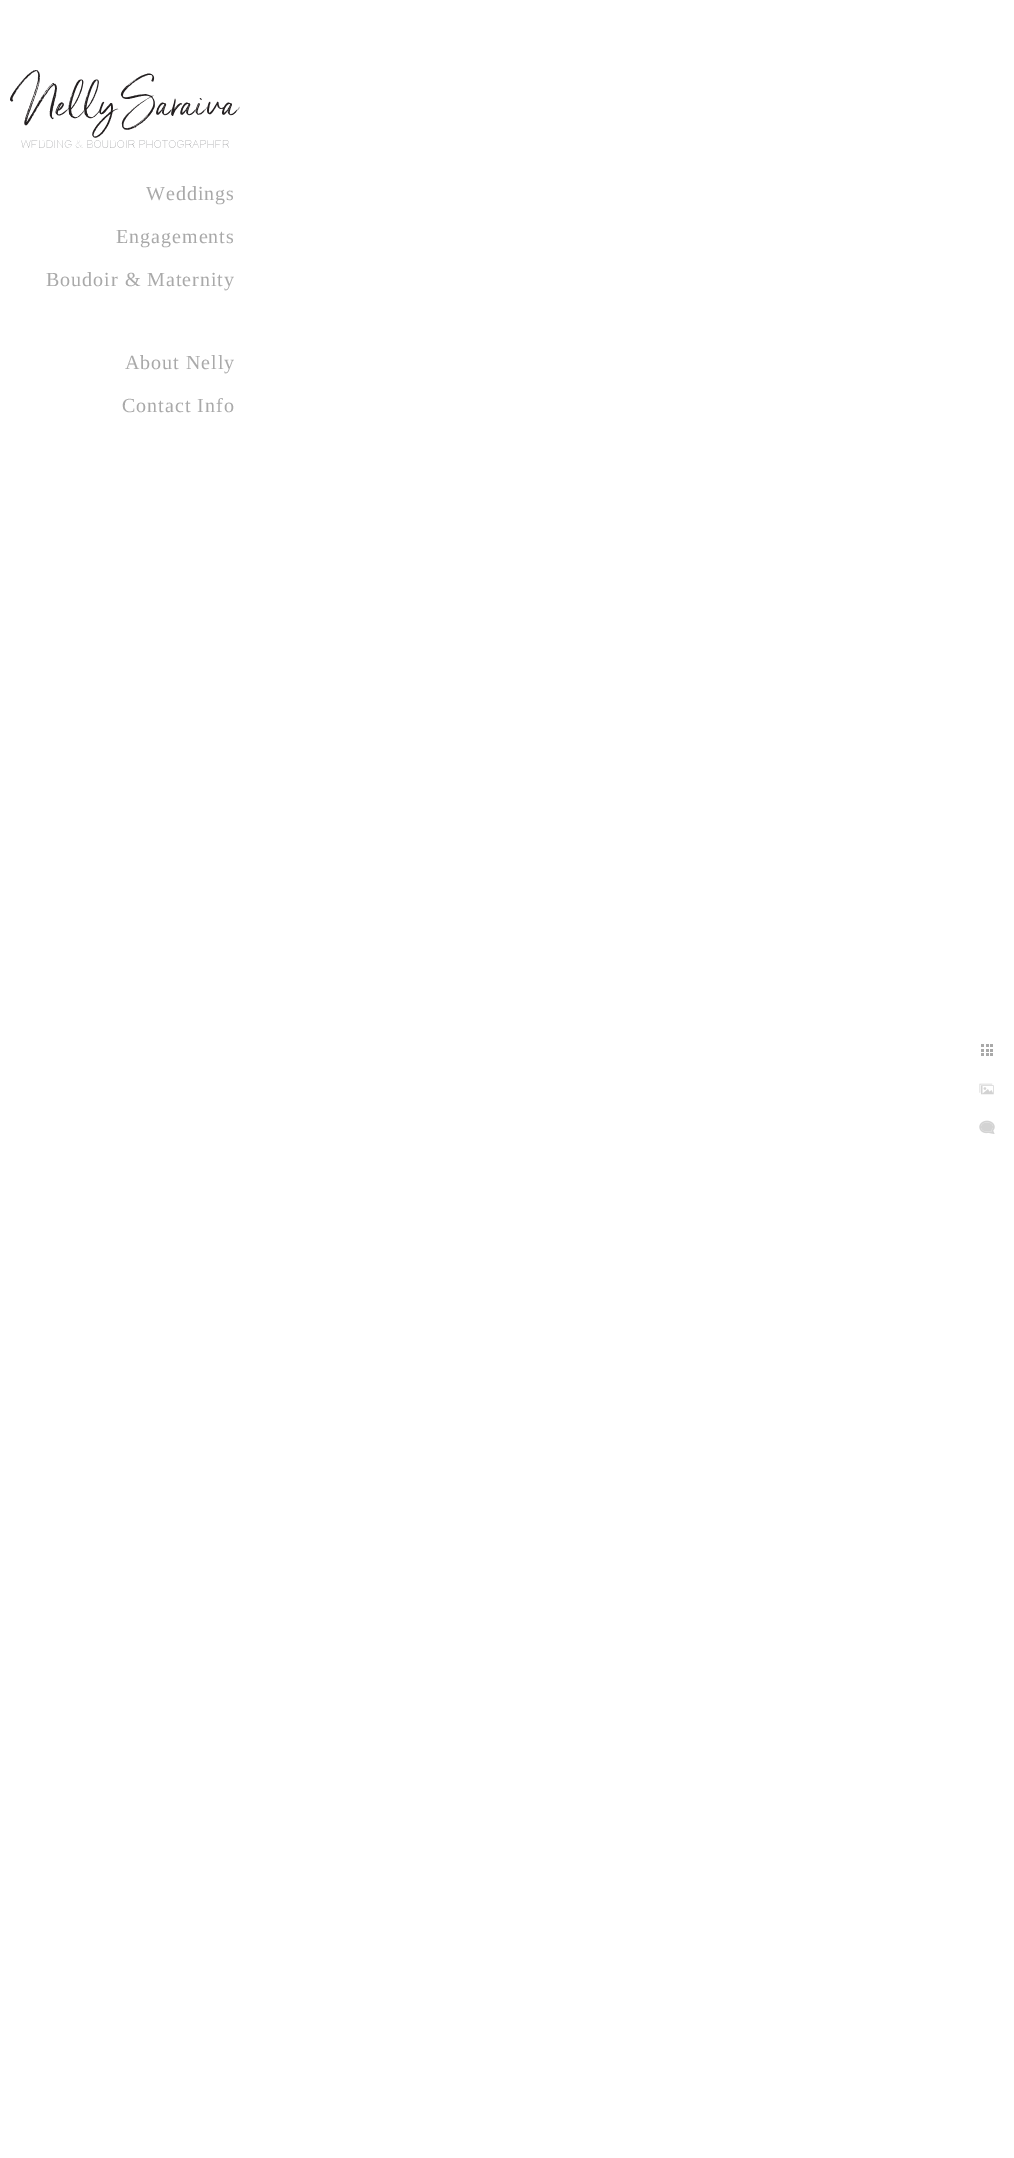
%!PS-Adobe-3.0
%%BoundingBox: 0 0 1014 2158
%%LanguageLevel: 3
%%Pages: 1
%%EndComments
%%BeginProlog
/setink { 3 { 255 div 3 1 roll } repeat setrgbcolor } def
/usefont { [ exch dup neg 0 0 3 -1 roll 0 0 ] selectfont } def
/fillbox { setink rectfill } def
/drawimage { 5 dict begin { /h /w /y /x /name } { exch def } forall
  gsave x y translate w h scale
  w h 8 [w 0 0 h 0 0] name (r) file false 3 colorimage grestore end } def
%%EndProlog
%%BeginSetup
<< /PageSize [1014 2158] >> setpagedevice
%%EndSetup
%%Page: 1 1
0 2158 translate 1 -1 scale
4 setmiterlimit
0 0 1014 2158 255 255 255 fillbox
(assets/img1.rgb) 10 70 230 78 drawimage
/LiberationSerif-Regular 20 usefont
169 169 169 setink
146 200 moveto 1 0 (Weddings) ashow
116 243 moveto 1 0 (Engagements) ashow
46 286 moveto 1 0 (Boudoir & Maternity) ashow
125 369 moveto 1 0 (About Nelly) ashow
122 412 moveto 1 0 (Contact Info) ashow
(assets/img2.rgb) 981 1044 12 12 drawimage
(assets/img3.rgb) 979 1083 15 12 drawimage
(assets/img4.rgb) 979 1120 16 14 drawimage
showpage
%%EOF
